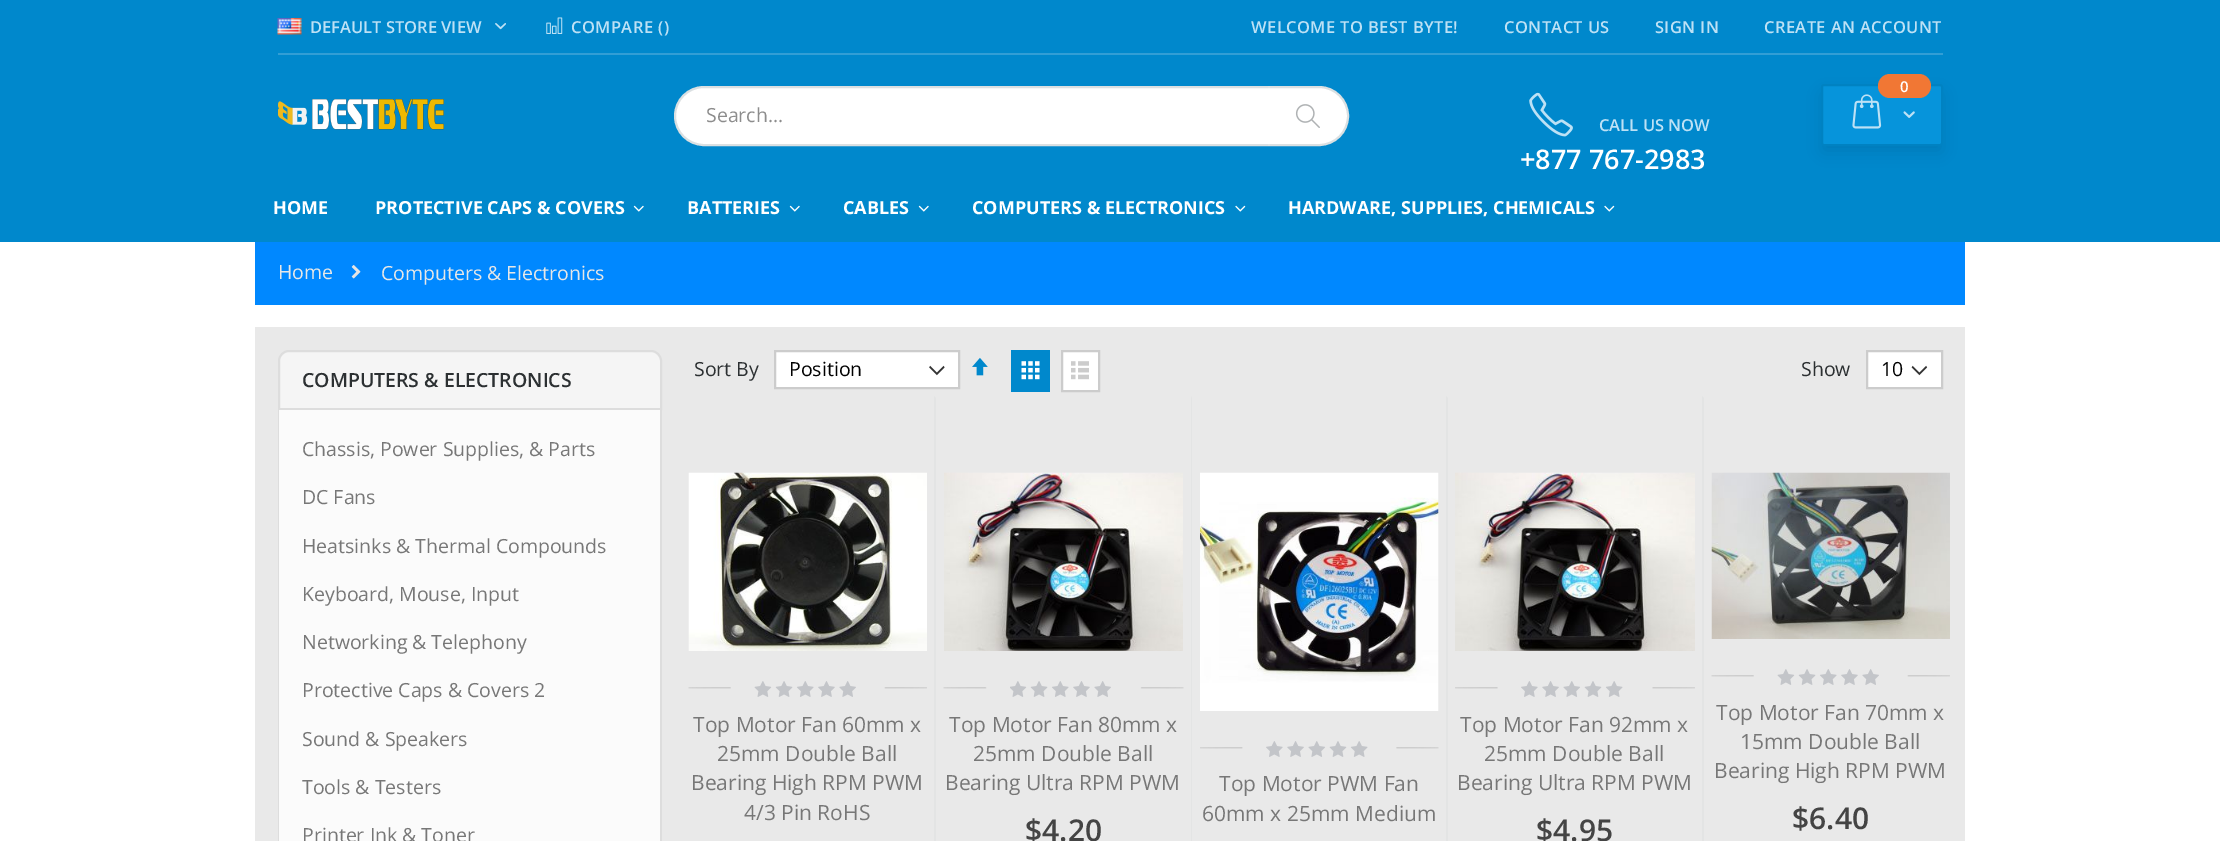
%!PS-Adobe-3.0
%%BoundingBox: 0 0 2220 841
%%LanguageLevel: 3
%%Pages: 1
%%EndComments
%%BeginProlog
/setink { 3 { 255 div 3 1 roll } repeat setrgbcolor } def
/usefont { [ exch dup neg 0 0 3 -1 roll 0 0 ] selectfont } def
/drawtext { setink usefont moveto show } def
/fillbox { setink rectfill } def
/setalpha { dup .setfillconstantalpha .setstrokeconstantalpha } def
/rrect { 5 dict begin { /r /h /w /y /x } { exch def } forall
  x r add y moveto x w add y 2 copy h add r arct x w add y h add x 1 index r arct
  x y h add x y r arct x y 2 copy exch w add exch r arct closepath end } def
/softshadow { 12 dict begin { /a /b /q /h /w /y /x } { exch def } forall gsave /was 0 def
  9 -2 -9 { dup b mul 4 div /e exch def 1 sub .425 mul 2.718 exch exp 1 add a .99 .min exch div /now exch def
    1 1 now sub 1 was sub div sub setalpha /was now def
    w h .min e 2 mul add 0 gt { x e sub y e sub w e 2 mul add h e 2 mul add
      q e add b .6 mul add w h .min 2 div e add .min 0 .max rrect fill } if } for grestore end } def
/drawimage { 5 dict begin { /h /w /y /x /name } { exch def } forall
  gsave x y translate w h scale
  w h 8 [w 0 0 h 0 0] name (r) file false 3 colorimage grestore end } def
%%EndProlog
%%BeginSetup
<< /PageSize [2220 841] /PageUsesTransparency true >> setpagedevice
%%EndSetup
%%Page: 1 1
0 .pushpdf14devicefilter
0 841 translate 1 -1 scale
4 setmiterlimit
0 0 2220 841 255 255 255 fillbox
0 0 2220 242 0 136 204 fillbox
278 53 1665 2 50 158 213 fillbox
(assets/img1.rgb) 277 18 25 17 drawimage
(DEFAULT STORE VIEW) 310 33 /OpenSans-SemiBold 16.5 189 225 245 drawtext
(assets/img2.rgb) 495 23 11 7 drawimage
(assets/img3.rgb) 546 17 17 17 drawimage
571 33 moveto 0.4 0 (COMPARE \(\)) ashow
1251 33 moveto 0.4 0 (WELCOME TO BEST BYTE!) ashow
1504 33 moveto 0.4 0 (CONTACT US) ashow
1655 33 moveto 0.4 0 (SIGN IN) ashow
1764 33 moveto 0.4 0 (CREATE AN ACCOUNT) ashow
0 0 0 setink
1824 95 116 55 0 8 0.1 softshadow
6 148 219 setink
1822 85 120 60 2 rrect gsave fill grestore
0 130 194 setink
2 setlinewidth
stroke
(assets/img4.rgb) 1852 94 30 35 drawimage
241 119 52 setink
1878 74 53 24 12 rrect fill
(0) 1900 92 /OpenSans-SemiBold 15 255 255 255 drawtext
(assets/img5.rgb) 1903 111 12 7 drawimage
(assets/img6.rgb) 278 99 166 31 drawimage
675 87 673 58 29 rrect gsave fill grestore
219 224 226 setink
stroke
(Search...) 706 122 /OpenSans-Regular 19.5 141 141 141 drawtext
0.1 setalpha
1268 86 2 60 255 255 255 fillbox
1 setalpha
(assets/img7.rgb) 1295 104 25 24 drawimage
(assets/img8.rgb) 1529 92 44 45 drawimage
(CALL US NOW) 1599 131 /OpenSans-SemiBold 16.5 189 225 245 drawtext
(+877 767-2983) 1520 169 /OpenSans-SemiBold 27 255 255 255 drawtext
(HOME) 273 214 /OpenSans-Bold 18 255 255 255 drawtext
(PROTECTIVE CAPS & COVERS) 375 214 /OpenSans-Bold 18 255 255 255 drawtext
(assets/img9.rgb) 633 205 11 7 drawimage
(BATTERIES) 687 214 /OpenSans-Bold 18 255 255 255 drawtext
(assets/img9.rgb) 789 205 11 7 drawimage
(CABLES) 843 214 /OpenSans-Bold 18 255 255 255 drawtext
(assets/img9.rgb) 918 205 11 7 drawimage
(COMPUTERS & ELECTRONICS) 972 214 /OpenSans-Bold 18 255 255 255 drawtext
(assets/img10.rgb) 1235 205 11 7 drawimage
(HARDWARE, SUPPLIES, CHEMICALS) 1288 214 /OpenSans-Bold 18 255 255 255 drawtext
(assets/img10.rgb) 1604 205 11 7 drawimage
255 242 1710 63 0 136 255 fillbox
(Home) 278 279 /OpenSans-Regular 19.5 231 231 231 drawtext
(assets/img11.rgb) 351 265 10 14 drawimage
(Computers & Electronics) 381 280 /OpenSans-Regular 19.5 231 231 231 drawtext
255 327 1710 514 233 233 233 fillbox
245 245 245 setink
289 351 moveto 651 351 lineto 656.5 351 661 355.5 661 361 curveto 661 409 lineto 279 409 lineto 279 361 lineto 279 355.5 283.5 351 289 351 curveto closepath gsave fill grestore
221 221 221 setink
stroke
(COMPUTERS & ELECTRONICS) 302 387 /OpenSans-SemiBold 19.5 44 48 50 drawtext
279 410 381 431 251 251 251 fillbox
221 221 221 setink
278 410 moveto 662 410 lineto 662 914 lineto 662 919 657 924 651 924 curveto 288 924 lineto 282 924 278 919 278 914 curveto closepath 279 410 moveto 660 410 lineto 660 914 lineto 660 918 656 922 651 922 curveto 288 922 lineto 283 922 279 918 279 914 curveto closepath eofill
(Chassis, Power Supplies, & Parts) 302 456 /OpenSans-Regular 19.5 119 119 119 drawtext
(DC Fans) 302 504 /OpenSans-Regular 19.5 119 119 119 drawtext
(Heatsinks & Thermal Compounds) 302 553 /OpenSans-Regular 19.5 119 119 119 drawtext
(Keyboard, Mouse, Input) 302 601 /OpenSans-Regular 19.5 119 119 119 drawtext
(Networking & Telephony) 302 649 /OpenSans-Regular 19.5 119 119 119 drawtext
(Protective Caps & Covers 2) 302 697 /OpenSans-Regular 19.5 119 119 119 drawtext
(Sound & Speakers) 302 746 /OpenSans-Regular 19.5 119 119 119 drawtext
(Tools & Testers) 302 794 /OpenSans-Regular 19.5 119 119 119 drawtext
(Printer Ink & Toner) 302 842 /OpenSans-Regular 19.5 119 119 119 drawtext
(Sort By) 694 376 /OpenSans-Regular 19.5 44 48 50 drawtext
776 352 182 35 255 255 255 fillbox
(assets/img12.rgb) 929 365 16 11 drawimage
204 204 204 setink
775 351 184 37 rectstroke
(Position) 789 376 /OpenSans-Regular 19.5 0 0 0 drawtext
(assets/img13.rgb) 972 357 16 19 drawimage
1011 350 39 42 0 136 204 fillbox
(assets/img14.rgb) 1021 361 19 19 drawimage
255 255 255 setink
1062 351 moveto 1099 351 lineto 1099 391 lineto 1062 391 lineto closepath gsave fill grestore
204 204 204 setink
stroke
(assets/img15.rgb) 1071 361 18 19 drawimage
(Show) 1801 376 /OpenSans-Regular 19.5 44 48 50 drawtext
1868 352 73 35 255 255 255 fillbox
(assets/img16.rgb) 1911 365 17 11 drawimage
204 204 204 setink
1867 351 75 37 rectstroke
(10) 1881 376 /OpenSans-Regular 19.5 0 0 0 drawtext
(assets/img17.rgb) 688 472 239 179 drawimage
(assets/img18.rgb) 688 687 239 2 drawimage
(assets/img19.rgb) 754 681 102 16 drawimage
(Top Motor Fan 60mm x) 693 732 /OpenSans-Regular 21 119 119 119 drawtext
(25mm Double Ball) 717 761 /OpenSans-Regular 21 119 119 119 drawtext
(Bearing High RPM PWM) 691 790 /OpenSans-Regular 21 119 119 119 drawtext
(4/3 Pin RoHS) 744 820 /OpenSans-Regular 21 119 119 119 drawtext
227 228 228 setink
934 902 moveto 934 396 lineto 936 398 lineto 936 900 lineto closepath fill
(assets/img20.rgb) 944 472 239 179 drawimage
(assets/img21.rgb) 943 687 241 2 drawimage
(assets/img22.rgb) 1010 681 101 16 drawimage
(Top Motor Fan 80mm x) 949 732 /OpenSans-Regular 21 119 119 119 drawtext
(25mm Double Ball) 973 761 /OpenSans-Regular 21 119 119 119 drawtext
(Bearing Ultra RPM PWM) 945 790 /OpenSans-Regular 21 119 119 119 drawtext
($4.20) 1025 841 /OpenSans-SemiBold 30 68 68 68 drawtext
227 228 228 setink
1191 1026 moveto 1191 396 lineto 1192 398 lineto 1192 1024 lineto closepath fill
(assets/img23.rgb) 1200 472 239 239 drawimage
(assets/img24.rgb) 1200 747 239 2 drawimage
(assets/img25.rgb) 1266 741 102 16 drawimage
(Top Motor PWM Fan) 1219 791 /OpenSans-Regular 21 119 119 119 drawtext
(60mm x 25mm Medium) 1202 821 /OpenSans-Regular 21 119 119 119 drawtext
227 228 228 setink
1446 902 moveto 1446 396 lineto 1448 398 lineto 1448 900 lineto closepath fill
(assets/img26.rgb) 1455 472 240 179 drawimage
(assets/img27.rgb) 1455 687 240 2 drawimage
(assets/img25.rgb) 1521 681 102 16 drawimage
(Top Motor Fan 92mm x) 1460 732 /OpenSans-Regular 21 119 119 119 drawtext
(25mm Double Ball) 1484 761 /OpenSans-Regular 21 119 119 119 drawtext
(Bearing Ultra RPM PWM) 1457 790 /OpenSans-Regular 21 119 119 119 drawtext
($4.95) 1536 841 /OpenSans-SemiBold 30 68 68 68 drawtext
227 228 228 setink
1702 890 moveto 1702 396 lineto 1704 398 lineto 1704 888 lineto closepath fill
(assets/img28.rgb) 1711 472 239 167 drawimage
(assets/img18.rgb) 1711 675 239 2 drawimage
(assets/img19.rgb) 1777 669 102 16 drawimage
(Top Motor Fan 70mm x) 1716 720 /OpenSans-Regular 21 119 119 119 drawtext
(15mm Double Ball) 1740 749 /OpenSans-Regular 21 119 119 119 drawtext
(Bearing High RPM PWM) 1714 778 /OpenSans-Regular 21 119 119 119 drawtext
($6.40) 1792 829 /OpenSans-SemiBold 30 68 68 68 drawtext
.poppdf14devicefilter showpage
%%EOF
